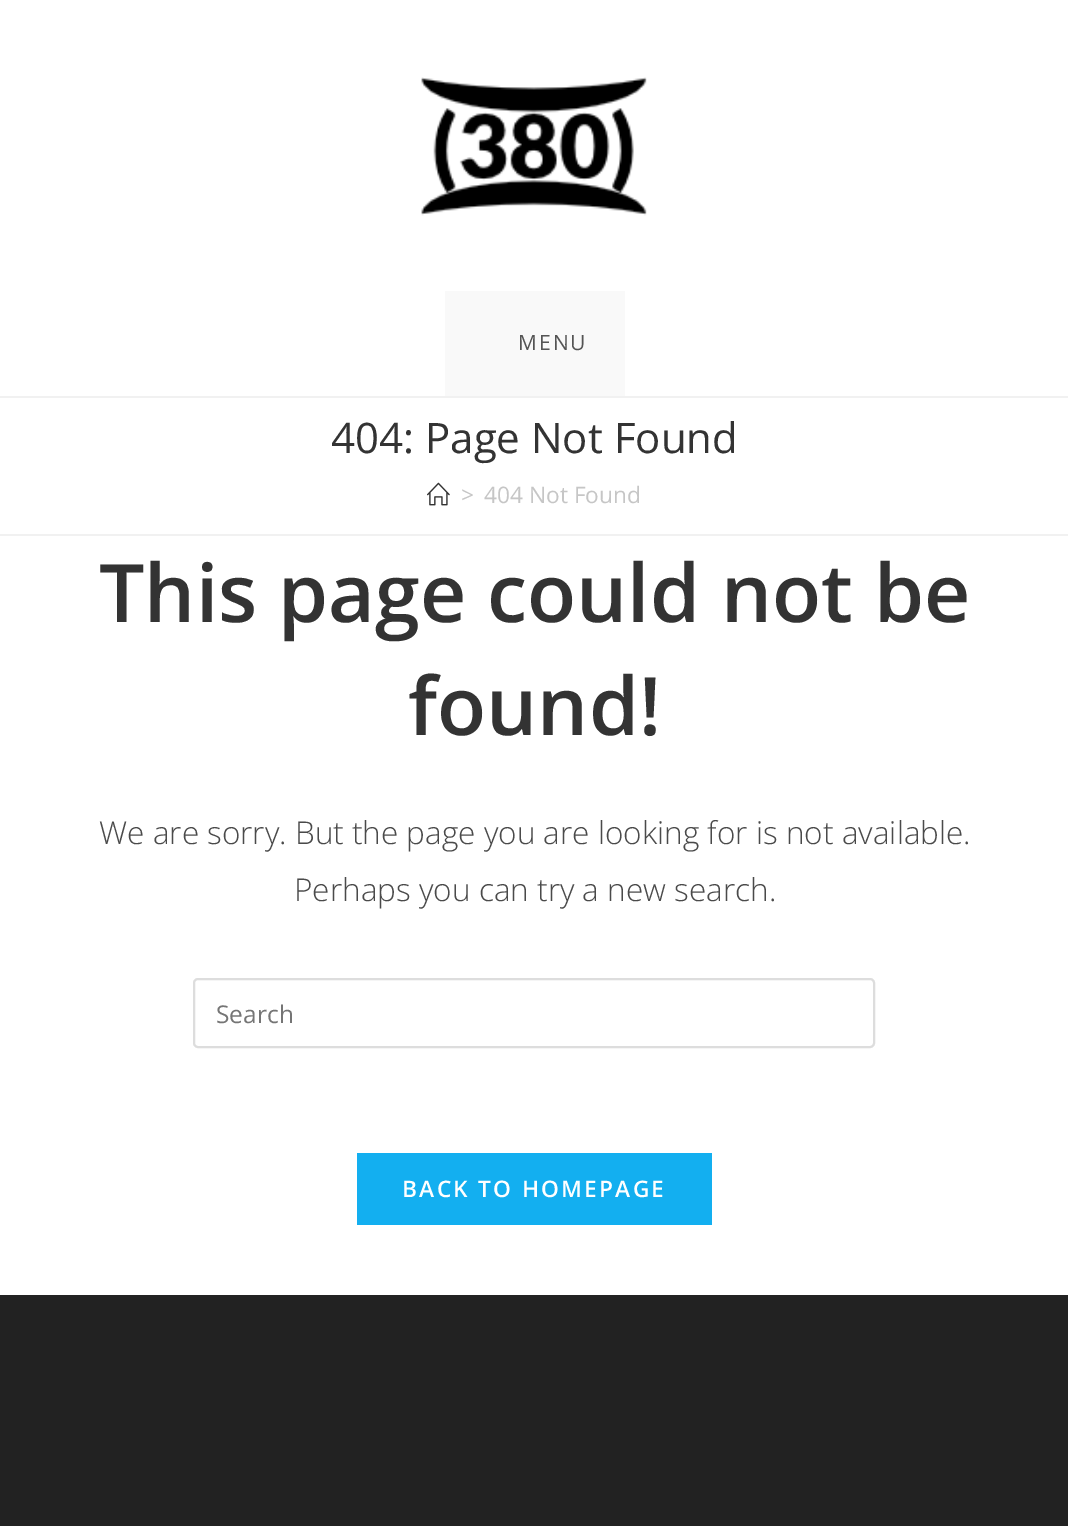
%!PS-Adobe-3.0
%%BoundingBox: 0 0 1068 1526
%%LanguageLevel: 3
%%Pages: 1
%%EndComments
%%BeginProlog
/setink { 3 { 255 div 3 1 roll } repeat setrgbcolor } def
/usefont { [ exch dup neg 0 0 3 -1 roll 0 0 ] selectfont } def
/drawtext { setink usefont moveto show } def
/fillbox { setink rectfill } def
/rrect { 5 dict begin { /r /h /w /y /x } { exch def } forall
  x r add y moveto x w add y 2 copy h add r arct x w add y h add x 1 index r arct
  x y h add x y r arct x y 2 copy exch w add exch r arct closepath end } def
/drawimage { 5 dict begin { /h /w /y /x /name } { exch def } forall
  gsave x y translate w h scale
  w h 8 [w 0 0 h 0 0] name (r) file false 3 colorimage grestore end } def
%%EndProlog
%%BeginSetup
<< /PageSize [1068 1526] >> setpagedevice
%%EndSetup
%%Page: 1 1
0 1526 translate 1 -1 scale
4 setmiterlimit
0 0 1068 1526 255 255 255 fillbox
0 396 1068 2 241 241 241 fillbox
(assets/img1.rgb) 421 77 226 139 drawimage
445 291 180 105 249 249 249 fillbox
/OpenSans-Regular 21 usefont
85 85 85 setink
518 350 moveto 2 0 (MENU) ashow
0 534 1068 2 241 241 241 fillbox
(404: Page Not Found) 331 453 /OpenSans-Regular 42 51 51 51 drawtext
(assets/img2.rgb) 427 482 23 24 drawimage
(>) 461 503 /OpenSans-Regular 22.75 198 198 198 drawtext
(404 Not Found) 484 503 /OpenSans-Regular 22.75 198 198 198 drawtext
(This page could not be) 99 622 /OpenSans-SemiBold 80.5 51 51 51 drawtext
(found!) 408 735 /OpenSans-SemiBold 80.5 51 51 51 drawtext
(We are sorry. But the page you are looking for is not available.) 99 844 /OpenSans-Light 31.5 74 74 74 drawtext
(Perhaps you can try a new search.) 294 901 /OpenSans-Light 31.5 74 74 74 drawtext
221 221 221 setink
2 setlinewidth
194 979 680 68 4 rrect stroke
(Search) 216 1023 /OpenSans-Regular 24.5 117 117 117 drawtext
357 1153 355 72 19 175 240 fillbox
/OpenSans-SemiBold 22.75 usefont
255 255 255 setink
402 1197 moveto 2.25 0 (BACK TO HOMEPAGE) ashow
0 1295 1068 231 34 34 34 fillbox
showpage
%%EOF
